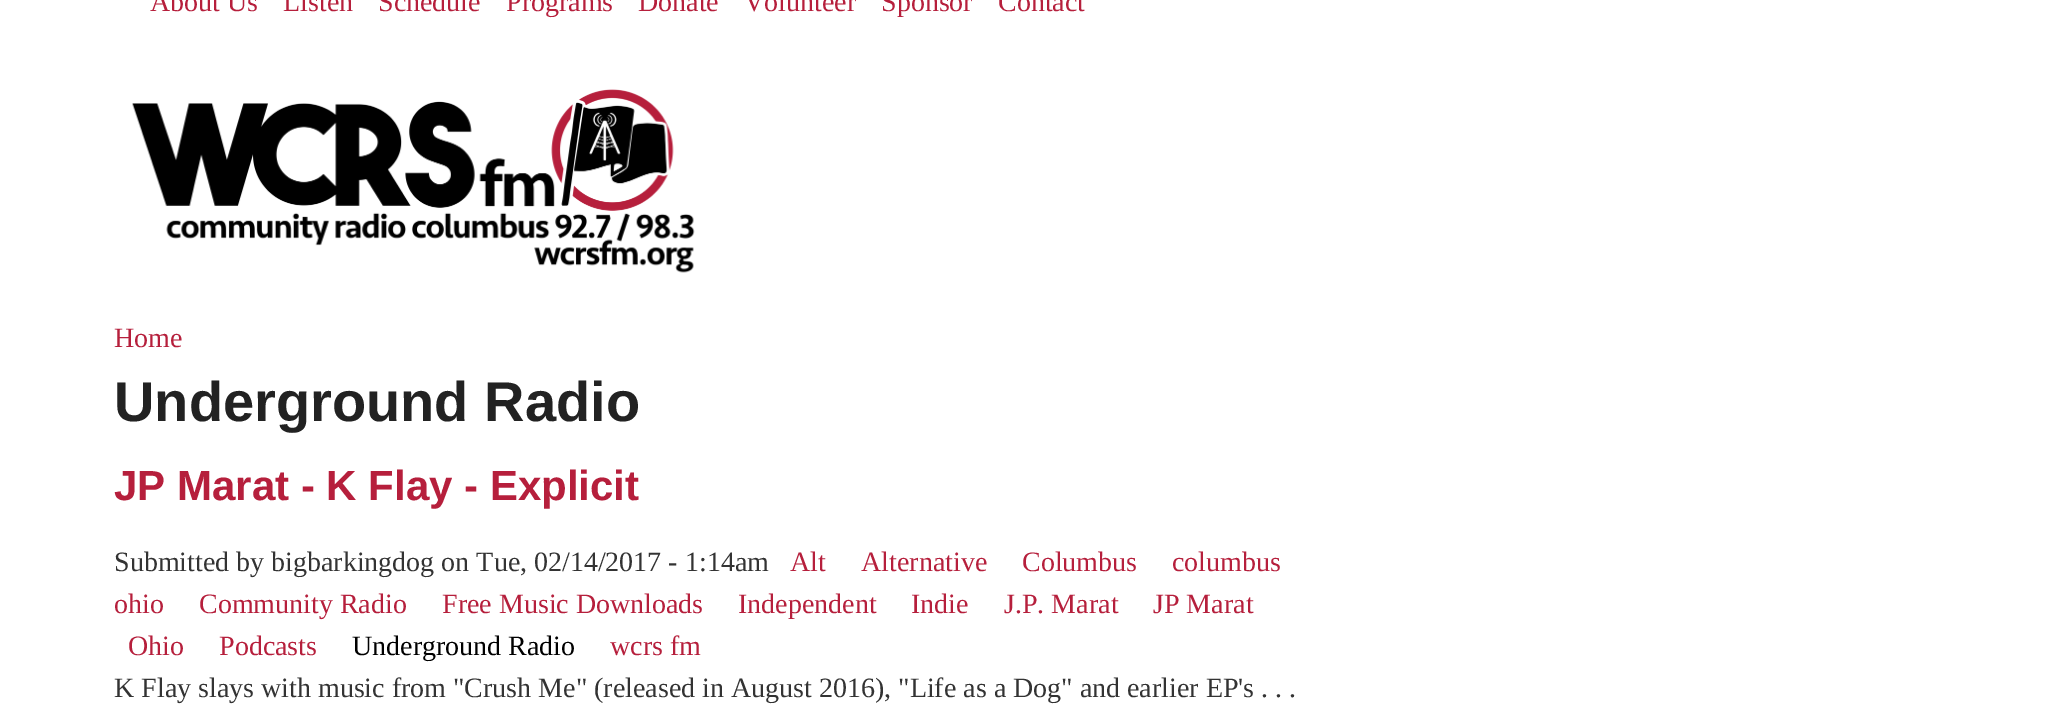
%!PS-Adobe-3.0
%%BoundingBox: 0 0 2072 716
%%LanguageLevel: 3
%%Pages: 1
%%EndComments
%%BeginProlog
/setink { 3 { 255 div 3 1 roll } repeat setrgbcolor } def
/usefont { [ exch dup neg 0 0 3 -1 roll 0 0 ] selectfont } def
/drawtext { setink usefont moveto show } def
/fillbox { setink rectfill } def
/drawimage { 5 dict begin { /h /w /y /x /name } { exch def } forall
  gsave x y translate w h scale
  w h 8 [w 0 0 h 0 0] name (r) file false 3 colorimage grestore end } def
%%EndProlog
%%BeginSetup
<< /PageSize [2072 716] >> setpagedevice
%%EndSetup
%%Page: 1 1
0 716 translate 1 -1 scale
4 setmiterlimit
0 0 2072 716 255 255 255 fillbox
(About Us) 150 11 /LiberationSerif-Regular 28 182 31 60 drawtext
(Listen) 283 11 /LiberationSerif-Regular 28 182 31 60 drawtext
(Schedule) 378 11 /LiberationSerif-Regular 28 182 31 60 drawtext
(Programs) 506 11 /LiberationSerif-Regular 28 182 31 60 drawtext
(Donate) 638 11 /LiberationSerif-Regular 28 182 31 60 drawtext
(Volunteer) 744 11 /LiberationSerif-Regular 28 182 31 60 drawtext
(Sponsor) 881 11 /LiberationSerif-Regular 28 182 31 60 drawtext
(Contact) 998 11 /LiberationSerif-Regular 28 182 31 60 drawtext
(assets/img1.rgb) 132 89 563 184 drawimage
(Home) 114 347 /LiberationSerif-Regular 28 182 31 60 drawtext
(Underground Radio) 114 421 /Arimo-Bold 56 34 34 34 drawtext
(JP Marat - K Flay - Explicit) 114 500 /Arimo-Bold 42 182 31 60 drawtext
(Submitted by bigbarkingdog on Tue, 02/14/2017 - 1:14am) 114 571 /LiberationSerif-Regular 28 51 51 51 drawtext
(Alt) 790 571 /LiberationSerif-Regular 28 182 31 60 drawtext
(Alternative) 861 571 /LiberationSerif-Regular 28 182 31 60 drawtext
(Columbus) 1022 571 /LiberationSerif-Regular 28 182 31 60 drawtext
(columbus) 1172 571 /LiberationSerif-Regular 28 182 31 60 drawtext
(ohio) 114 613 /LiberationSerif-Regular 28 182 31 60 drawtext
(Community Radio) 199 613 /LiberationSerif-Regular 28 182 31 60 drawtext
(Free Music Downloads) 442 613 /LiberationSerif-Regular 28 182 31 60 drawtext
(Independent) 738 613 /LiberationSerif-Regular 28 182 31 60 drawtext
(Indie) 911 613 /LiberationSerif-Regular 28 182 31 60 drawtext
(J.P. Marat) 1004 613 /LiberationSerif-Regular 28 182 31 60 drawtext
(JP Marat) 1153 613 /LiberationSerif-Regular 28 182 31 60 drawtext
(Ohio) 128 655 /LiberationSerif-Regular 28 182 31 60 drawtext
(Podcasts) 219 655 /LiberationSerif-Regular 28 182 31 60 drawtext
(Underground Radio) 352 655 /LiberationSerif-Regular 28 0 0 0 drawtext
(wcrs fm) 610 655 /LiberationSerif-Regular 28 182 31 60 drawtext
(K Flay slays with music from "Crush Me" \(released in August 2016\), "Life as a Dog" and earlier EP's . . .) 114 697 /LiberationSerif-Regular 28 51 51 51 drawtext
showpage
%%EOF
